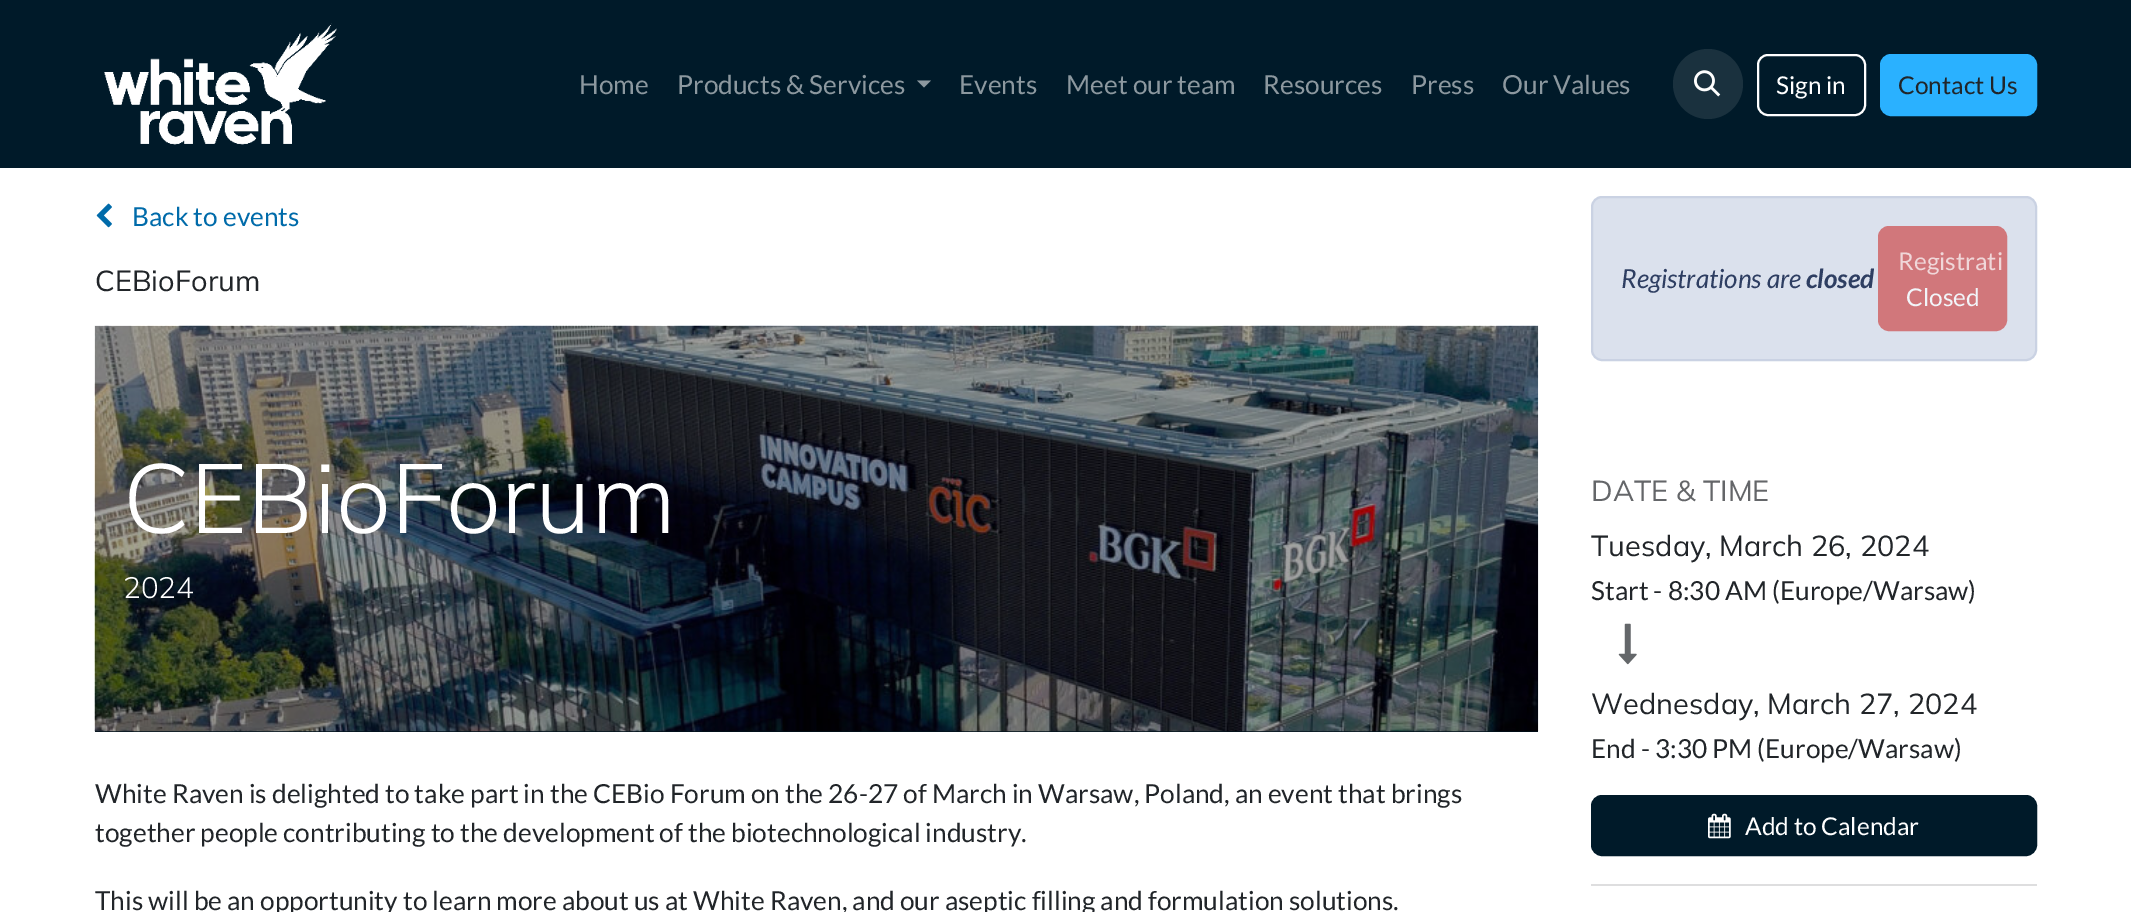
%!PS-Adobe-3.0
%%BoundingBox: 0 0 2131 912
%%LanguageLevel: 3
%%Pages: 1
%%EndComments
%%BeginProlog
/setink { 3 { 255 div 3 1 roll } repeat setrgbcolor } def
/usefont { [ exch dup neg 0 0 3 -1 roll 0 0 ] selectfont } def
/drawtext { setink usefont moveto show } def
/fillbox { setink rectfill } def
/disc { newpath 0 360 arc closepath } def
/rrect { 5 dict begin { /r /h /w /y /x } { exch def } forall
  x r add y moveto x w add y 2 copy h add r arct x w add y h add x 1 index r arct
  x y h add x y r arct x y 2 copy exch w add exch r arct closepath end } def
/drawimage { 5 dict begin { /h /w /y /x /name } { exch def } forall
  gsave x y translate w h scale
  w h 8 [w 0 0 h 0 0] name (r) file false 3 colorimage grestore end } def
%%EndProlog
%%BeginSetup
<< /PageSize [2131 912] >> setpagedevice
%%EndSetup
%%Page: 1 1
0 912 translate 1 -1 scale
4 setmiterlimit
0 0 2131 912 255 255 255 fillbox
0 0 2131 168 0 26 41 fillbox
(assets/img1.rgb) 104 23 233 122 drawimage
(Home) 579 94 /Lato-Regular 26.25 140 152 159 drawtext
(Products & Services) 677 94 /Lato-Regular 26.25 140 152 159 drawtext
917 80.5 moveto 931 80.5 lineto 924 87.5 lineto closepath fill
(Events) 959 94 /Lato-Regular 26.25 140 152 159 drawtext
(Meet our team) 1066 94 /Lato-Regular 26.25 140 152 159 drawtext
(Resources) 1263 94 /Lato-Regular 26.25 140 152 159 drawtext
(Press) 1411 94 /Lato-Regular 26.25 140 152 159 drawtext
(Our Values) 1502 94 /Lato-Regular 26.25 140 152 159 drawtext
26 49 62 setink
1708 84 35 disc fill
(assets/img2.rgb) 1694 70 27 27 drawimage
255 255 255 setink
2 setlinewidth
1758 55 107 60 10 rrect stroke
(Sign in) 1776 94 /Lato-Regular 24.5 255 255 255 drawtext
42 177 255 setink
1881 55 155 60 10 rrect gsave fill grestore
stroke
(Contact Us) 1898 94 /Lato-Regular 24.5 33 37 41 drawtext
(assets/img3.rgb) 96 203 16 25 drawimage
(Back to events) 132 226 /Lato-Regular 26.25 0 107 170 drawtext
(CEBioForum) 95 291 /Mulish-Regular 28.9 33 37 41 drawtext
95 731 1443 1 0 17 26 fillbox
(assets/img4.rgb) 94 325 1445 407 drawimage
(CEBioForum) 123 533 /Mulish-Light 98 255 255 255 drawtext
(2024) 123 598 /Mulish-Light 29.5 255 255 255 drawtext
(White Raven is delighted to take part in the CEBio Forum on the 26-27 of March in Warsaw, Poland, an event that brings) 95 803 /Lato-Regular 26.25 33 37 41 drawtext
(together people contributing to the development of the biotechnological industry.) 95 842 /Lato-Regular 26.25 33 37 41 drawtext
(This will be an opportunity to learn more about us at White Raven, and our aseptic filling and formulation solutions.) 95 910 /Lato-Regular 26.25 33 37 41 drawtext
219 225 237 setink
1592 197 444 163 10 rrect gsave fill grestore
202 210 227 setink
stroke
(Registrations are) 1621 288 /Lato-Italic 26.25 46 62 98 drawtext
(closed) 1806 288 /Lato-BoldItalic 26.25 46 62 98 drawtext
209 119 123 setink
1879 227 127 103 10 rrect gsave fill grestore
stroke
(Registrati) 1898 270 /Lato-Regular 24.5 240 215 217 drawtext
(Closed) 1906 306 /Lato-Regular 24.5 242 245 249 drawtext
1591 884 446 2 222 222 223 fillbox
(DATE & TIME) 1591 501 /Mulish-Regular 28.9 100 102 105 drawtext
(Tuesday, March 26, 2024) 1591 556 /Mulish-Regular 28.9 33 37 41 drawtext
(Start - 8:30 AM \(Europe/Warsaw\)) 1591 600 /Lato-Regular 26.25 33 37 41 drawtext
(assets/img5.rgb) 1618 623 19 42 drawimage
(Wednesday, March 27, 2024) 1591 714 /Mulish-Regular 28.9 33 37 41 drawtext
(End - 3:30 PM \(Europe/Warsaw\)) 1591 758 /Lato-Regular 26.25 33 37 41 drawtext
0 26 41 setink
1592 796 444 59 10 rrect gsave fill grestore
stroke
(assets/img6.rgb) 1708 813 23 26 drawimage
(Add to Calendar) 1745 835 /Lato-Regular 24.5 255 255 255 drawtext
showpage
%%EOF
